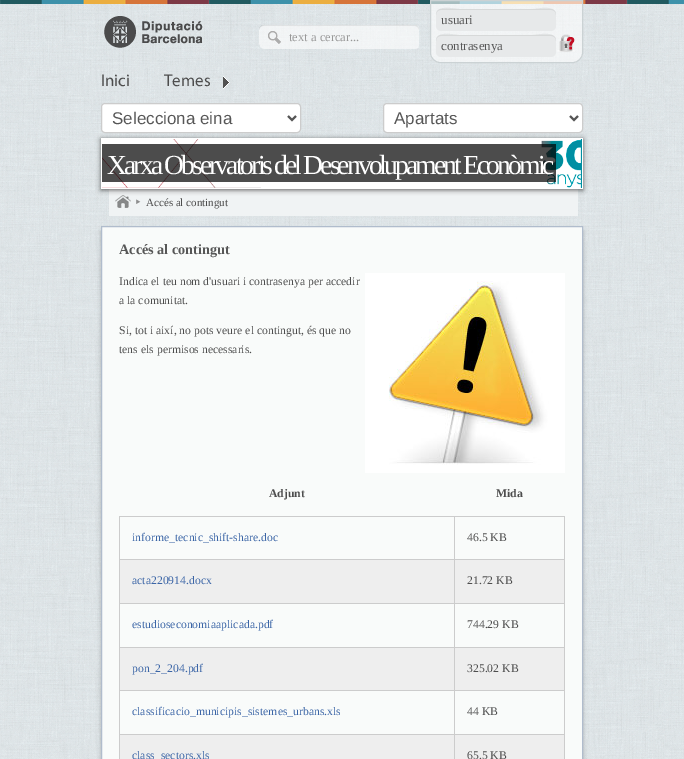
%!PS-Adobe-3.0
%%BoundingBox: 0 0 684 759
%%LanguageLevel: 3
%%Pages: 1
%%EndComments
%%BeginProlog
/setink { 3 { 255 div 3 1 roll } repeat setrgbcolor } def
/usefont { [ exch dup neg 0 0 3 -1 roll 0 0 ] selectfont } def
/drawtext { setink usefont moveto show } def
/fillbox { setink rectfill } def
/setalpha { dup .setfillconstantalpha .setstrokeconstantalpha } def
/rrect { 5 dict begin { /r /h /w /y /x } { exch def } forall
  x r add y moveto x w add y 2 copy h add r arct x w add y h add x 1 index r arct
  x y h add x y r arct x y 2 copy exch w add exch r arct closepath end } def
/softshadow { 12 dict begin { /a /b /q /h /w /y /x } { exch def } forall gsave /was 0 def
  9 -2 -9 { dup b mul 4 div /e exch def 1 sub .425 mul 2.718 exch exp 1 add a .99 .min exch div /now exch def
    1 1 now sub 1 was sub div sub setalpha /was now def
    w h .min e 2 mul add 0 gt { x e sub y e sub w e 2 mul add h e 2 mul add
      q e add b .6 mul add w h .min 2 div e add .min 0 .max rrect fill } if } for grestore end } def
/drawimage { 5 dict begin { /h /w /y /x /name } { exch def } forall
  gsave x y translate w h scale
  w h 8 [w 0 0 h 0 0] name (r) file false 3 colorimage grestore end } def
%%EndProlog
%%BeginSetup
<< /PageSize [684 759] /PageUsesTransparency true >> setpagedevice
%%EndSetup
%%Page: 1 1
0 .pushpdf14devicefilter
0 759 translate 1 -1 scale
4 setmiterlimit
0 0 684 759 255 255 255 fillbox
(assets/img1.rgb) 0 0 684 759 drawimage
(assets/img2.rgb) 0 0 684 4 drawimage
(assets/img3.rgb) 104 16 99 32 drawimage
(assets/img4.rgb) 259 25 160 24 drawimage
0.07 setalpha
0 0 0 setink
263 26 moveto 415 26 lineto 417 26 419 28 419 30 curveto 419 28 418 26 416 25 curveto 262 25 lineto 260 26 259 28 259 30 curveto 259 28 261 26 263 26 curveto closepath fill
1 setalpha
(text a cercar...) 289 41 /LiberationSerif-Regular 12.5 152 152 152 drawtext
(assets/img5.rgb) 430 1 153 62 drawimage
203 210 212 setink
430.5 0.5 moveto 582.5 0.5 lineto 582.5 53 lineto 582.5 58 578 62.5 573 62.5 curveto 440 62.5 lineto 435 62.5 430.5 58 430.5 53 curveto closepath stroke
231 233 234 setink
436 9 120 22 5 rrect fill
0.07 setalpha
0 0 0 setink
441 10 moveto 551 10 lineto 554 10 556 12 556 15 curveto 556 4 537 9 533 9 curveto 459 9 lineto 455 9 436 4 436 15 curveto 436 12 438 10 441 10 curveto closepath fill
1 setalpha
(usuari) 441 24 /LiberationSerif-Regular 13 87 87 87 drawtext
231 233 234 setink
436 35 120 22 5 rrect fill
0.07 setalpha
0 0 0 setink
441 36 moveto 551 36 lineto 554 36 556 38 556 41 curveto 556 30 537 35 533 35 curveto 459 35 lineto 455 35 436 30 436 41 curveto 436 38 438 36 441 36 curveto closepath fill
1 setalpha
(contrasenya) 441 50 /LiberationSerif-Regular 13 87 87 87 drawtext
(assets/img6.rgb) 557 34 18 18 drawimage
(Inici) 101 86 /Myriad-Regular 17 77 77 77 drawtext
(assets/img7.rgb) 223 76 7 13 drawimage
(Temes) 164 86 /Myriad-Regular 17 77 77 77 drawtext
255 255 255 setink
101.5 103.5 199 29 3.5 rrect gsave fill grestore
204 204 204 setink
stroke
85 85 85 setink
2 setlinewidth
288 116 moveto 292 120 lineto 296 116 lineto stroke
(Selecciona eina) 112 124 /LiberationSans-Regular 17 87 87 87 drawtext
255 255 255 setink
383.5 103.5 199 29 3.5 rrect gsave fill grestore
204 204 204 setink
1 setlinewidth
stroke
85 85 85 setink
2 setlinewidth
570 116 moveto 574 120 lineto 578 116 lineto stroke
(Apartats) 394 124 /LiberationSans-Regular 17 87 87 87 drawtext
109 189 469 27 240 243 244 fillbox
(assets/img9.rgb) 115 195 16 13 drawimage
50 50 50 setink
101 139 482 51 0 2.5 0.75 softshadow
101 138 482 51 255 255 255 fillbox
(assets/img8.rgb) 102 139 480 49 drawimage
0.7 setalpha
102 144 454 38 0 0 0 fillbox
/LiberationSerif-Regular 27.6 usefont
1 setalpha
255 255 255 setink
107 174 moveto -2.9 0 (Xarxa Observatoris del Desenvolupament Econòmic) ashow
(assets/img10.rgb) 136 199 5 5 drawimage
(Accés al contingut) 146 206 /LiberationSerif-Regular 11 77 77 77 drawtext
50 50 50 setink
101 231 482 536 0 2.5 0.3 softshadow
249 251 250 setink
101.5 226.5 moveto 582.5 226.5 lineto 582.5 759.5 lineto 101.5 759.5 lineto closepath gsave fill grestore
176 188 204 setink
1 setlinewidth
stroke
(Accés al contingut) 119 254 /LiberationSerif-Bold 14.25 87 87 87 drawtext
(Indica el teu nom d'usuari i contrasenya per accedir) 119 285 /LiberationSerif-Regular 11.7 77 77 77 drawtext
(a la comunitat.) 119 304 /LiberationSerif-Regular 11.7 77 77 77 drawtext
(assets/img11.rgb) 365 273 200 200 drawimage
(Si, tot i així, no pots veure el contingut, és que no) 119 334 /LiberationSerif-Regular 11.7 77 77 77 drawtext
(tens els permisos necessaris.) 119 353 /LiberationSerif-Regular 11.7 77 77 77 drawtext
(Adjunt) 269 497 /LiberationSerif-Bold 11.7 77 77 77 drawtext
(Mida) 496 497 /LiberationSerif-Bold 11.7 77 77 77 drawtext
119 559 446 1 204 204 204 fillbox
454 516 111 1 204 204 204 fillbox
120 560 444 43 238 238 238 fillbox
119 603 446 1 204 204 204 fillbox
119 647 446 1 204 204 204 fillbox
120 648 444 42 238 238 238 fillbox
119 690 446 1 204 204 204 fillbox
119 734 446 1 204 204 204 fillbox
120 735 444 24 238 238 238 fillbox
454 559 1 200 204 204 204 fillbox
454 516 1 44 204 204 204 fillbox
119 516 336 1 204 204 204 fillbox
119 559 1 200 204 204 204 fillbox
119 516 1 44 204 204 204 fillbox
(informe_tecnic_shift-share.doc) 132 541 /LiberationSerif-Regular 11.7 59 101 166 drawtext
564 559 1 200 204 204 204 fillbox
564 516 1 44 204 204 204 fillbox
(46.5 KB) 467 541 /LiberationSerif-Regular 11.7 77 77 77 drawtext
(acta220914.docx) 132 584 /LiberationSerif-Regular 11.7 59 101 166 drawtext
(21.72 KB) 467 584 /LiberationSerif-Regular 11.7 77 77 77 drawtext
(estudioseconomiaaplicada.pdf) 132 628 /LiberationSerif-Regular 11.7 59 101 166 drawtext
(744.29 KB) 467 628 /LiberationSerif-Regular 11.7 77 77 77 drawtext
(pon_2_204.pdf) 132 672 /LiberationSerif-Regular 11.7 59 101 166 drawtext
(325.02 KB) 467 672 /LiberationSerif-Regular 11.7 77 77 77 drawtext
(classificacio_municipis_sistemes_urbans.xls) 132 715 /LiberationSerif-Regular 11.7 59 101 166 drawtext
(44 KB) 467 715 /LiberationSerif-Regular 11.7 77 77 77 drawtext
(class_sectors.xls) 132 759 /LiberationSerif-Regular 11.7 59 101 166 drawtext
(65.5 KB) 467 759 /LiberationSerif-Regular 11.7 77 77 77 drawtext
.poppdf14devicefilter showpage
%%EOF
